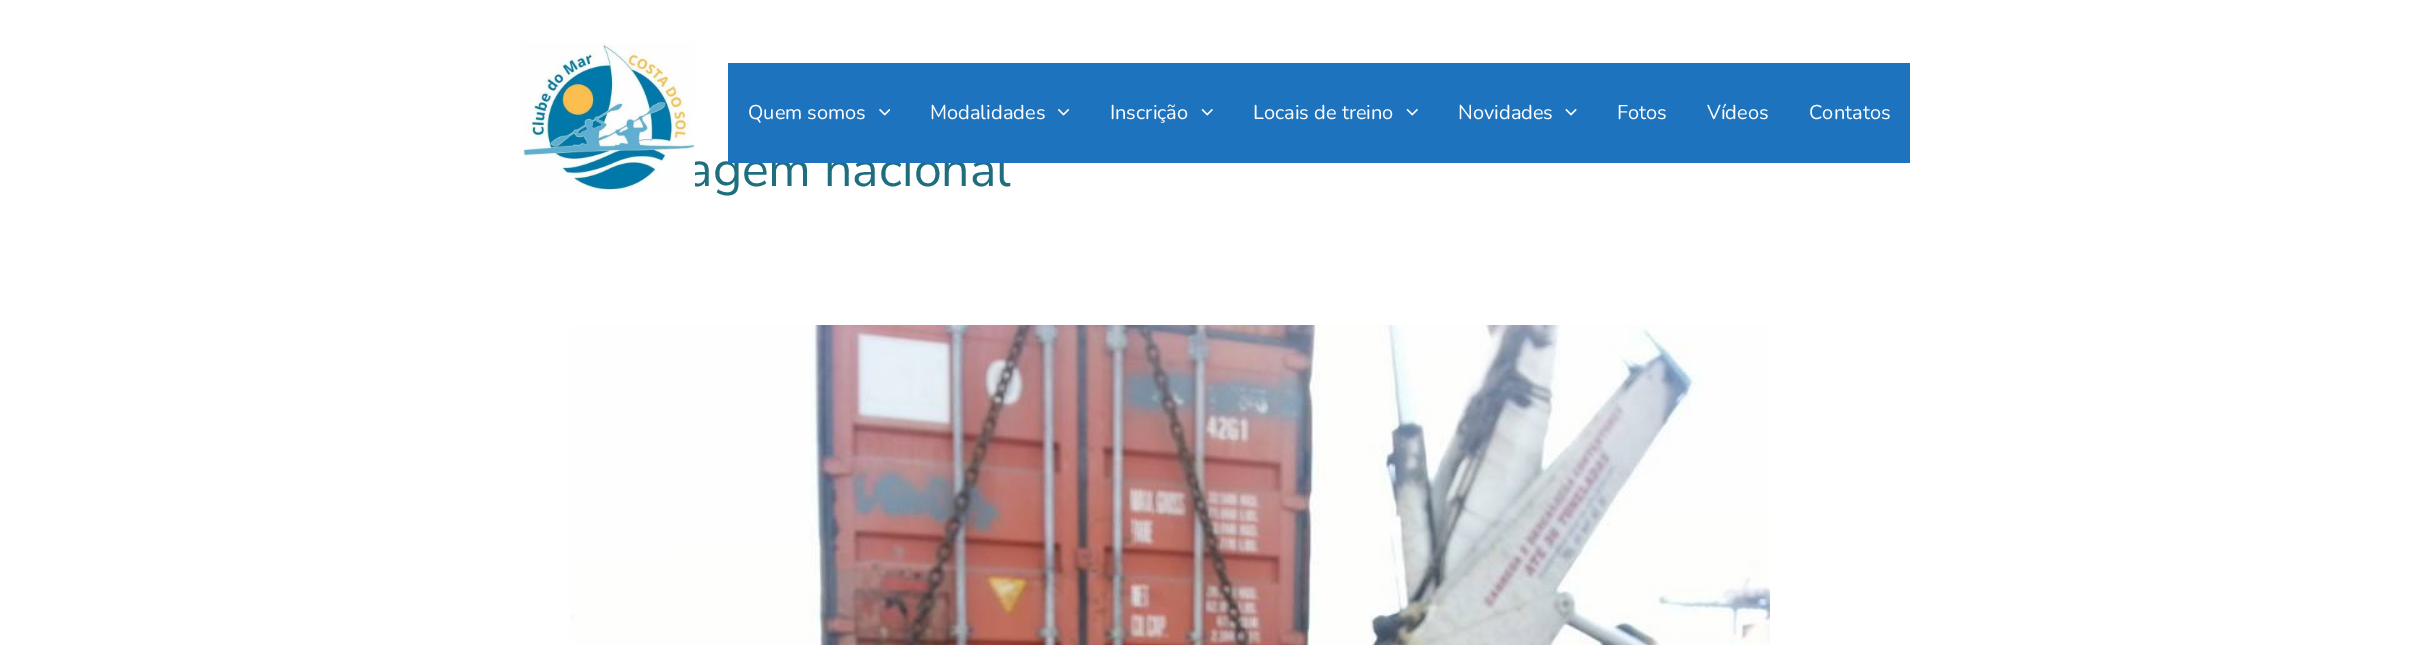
%!PS-Adobe-3.0
%%BoundingBox: 0 0 2419 645
%%LanguageLevel: 3
%%Pages: 1
%%EndComments
%%BeginProlog
/setink { 3 { 255 div 3 1 roll } repeat setrgbcolor } def
/usefont { [ exch dup neg 0 0 3 -1 roll 0 0 ] selectfont } def
/drawtext { setink usefont moveto show } def
/fillbox { setink rectfill } def
/drawimage { 5 dict begin { /h /w /y /x /name } { exch def } forall
  gsave x y translate w h scale
  w h 8 [w 0 0 h 0 0] name (r) file false 3 colorimage grestore end } def
%%EndProlog
%%BeginSetup
<< /PageSize [2419 645] >> setpagedevice
%%EndSetup
%%Page: 1 1
0 645 translate 1 -1 scale
4 setmiterlimit
0 0 2419 645 255 255 255 fillbox
(agem nacional) 686 186 /NunitoSans-ExtraLight 50 30 110 126 drawtext
(assets/img1.rgb) 521 43 174 150 drawimage
728 63 1182 100 30 115 190 fillbox
(Quem somos) 748 119 /Nunito-Regular 20 255 255 255 drawtext
(assets/img2.rgb) 879 108 11 8 drawimage
(Modalidades) 930 119 /Nunito-Regular 20 255 255 255 drawtext
(assets/img3.rgb) 1058 108 12 8 drawimage
(Inscrição) 1110 119 /Nunito-Regular 20 255 255 255 drawtext
(assets/img4.rgb) 1201 108 12 8 drawimage
(Locais de treino) 1253 119 /Nunito-Regular 20 255 255 255 drawtext
(assets/img4.rgb) 1406 108 12 8 drawimage
(Novidades) 1458 119 /Nunito-Regular 20 255 255 255 drawtext
(assets/img5.rgb) 1565 108 12 8 drawimage
(Fotos) 1617 119 /Nunito-Regular 20 255 255 255 drawtext
(Vídeos) 1707 119 /Nunito-Regular 20 255 255 255 drawtext
(Contatos) 1809 119 /Nunito-Regular 20 255 255 255 drawtext
(assets/img6.rgb) 570 325 1200 320 drawimage
showpage
%%EOF
